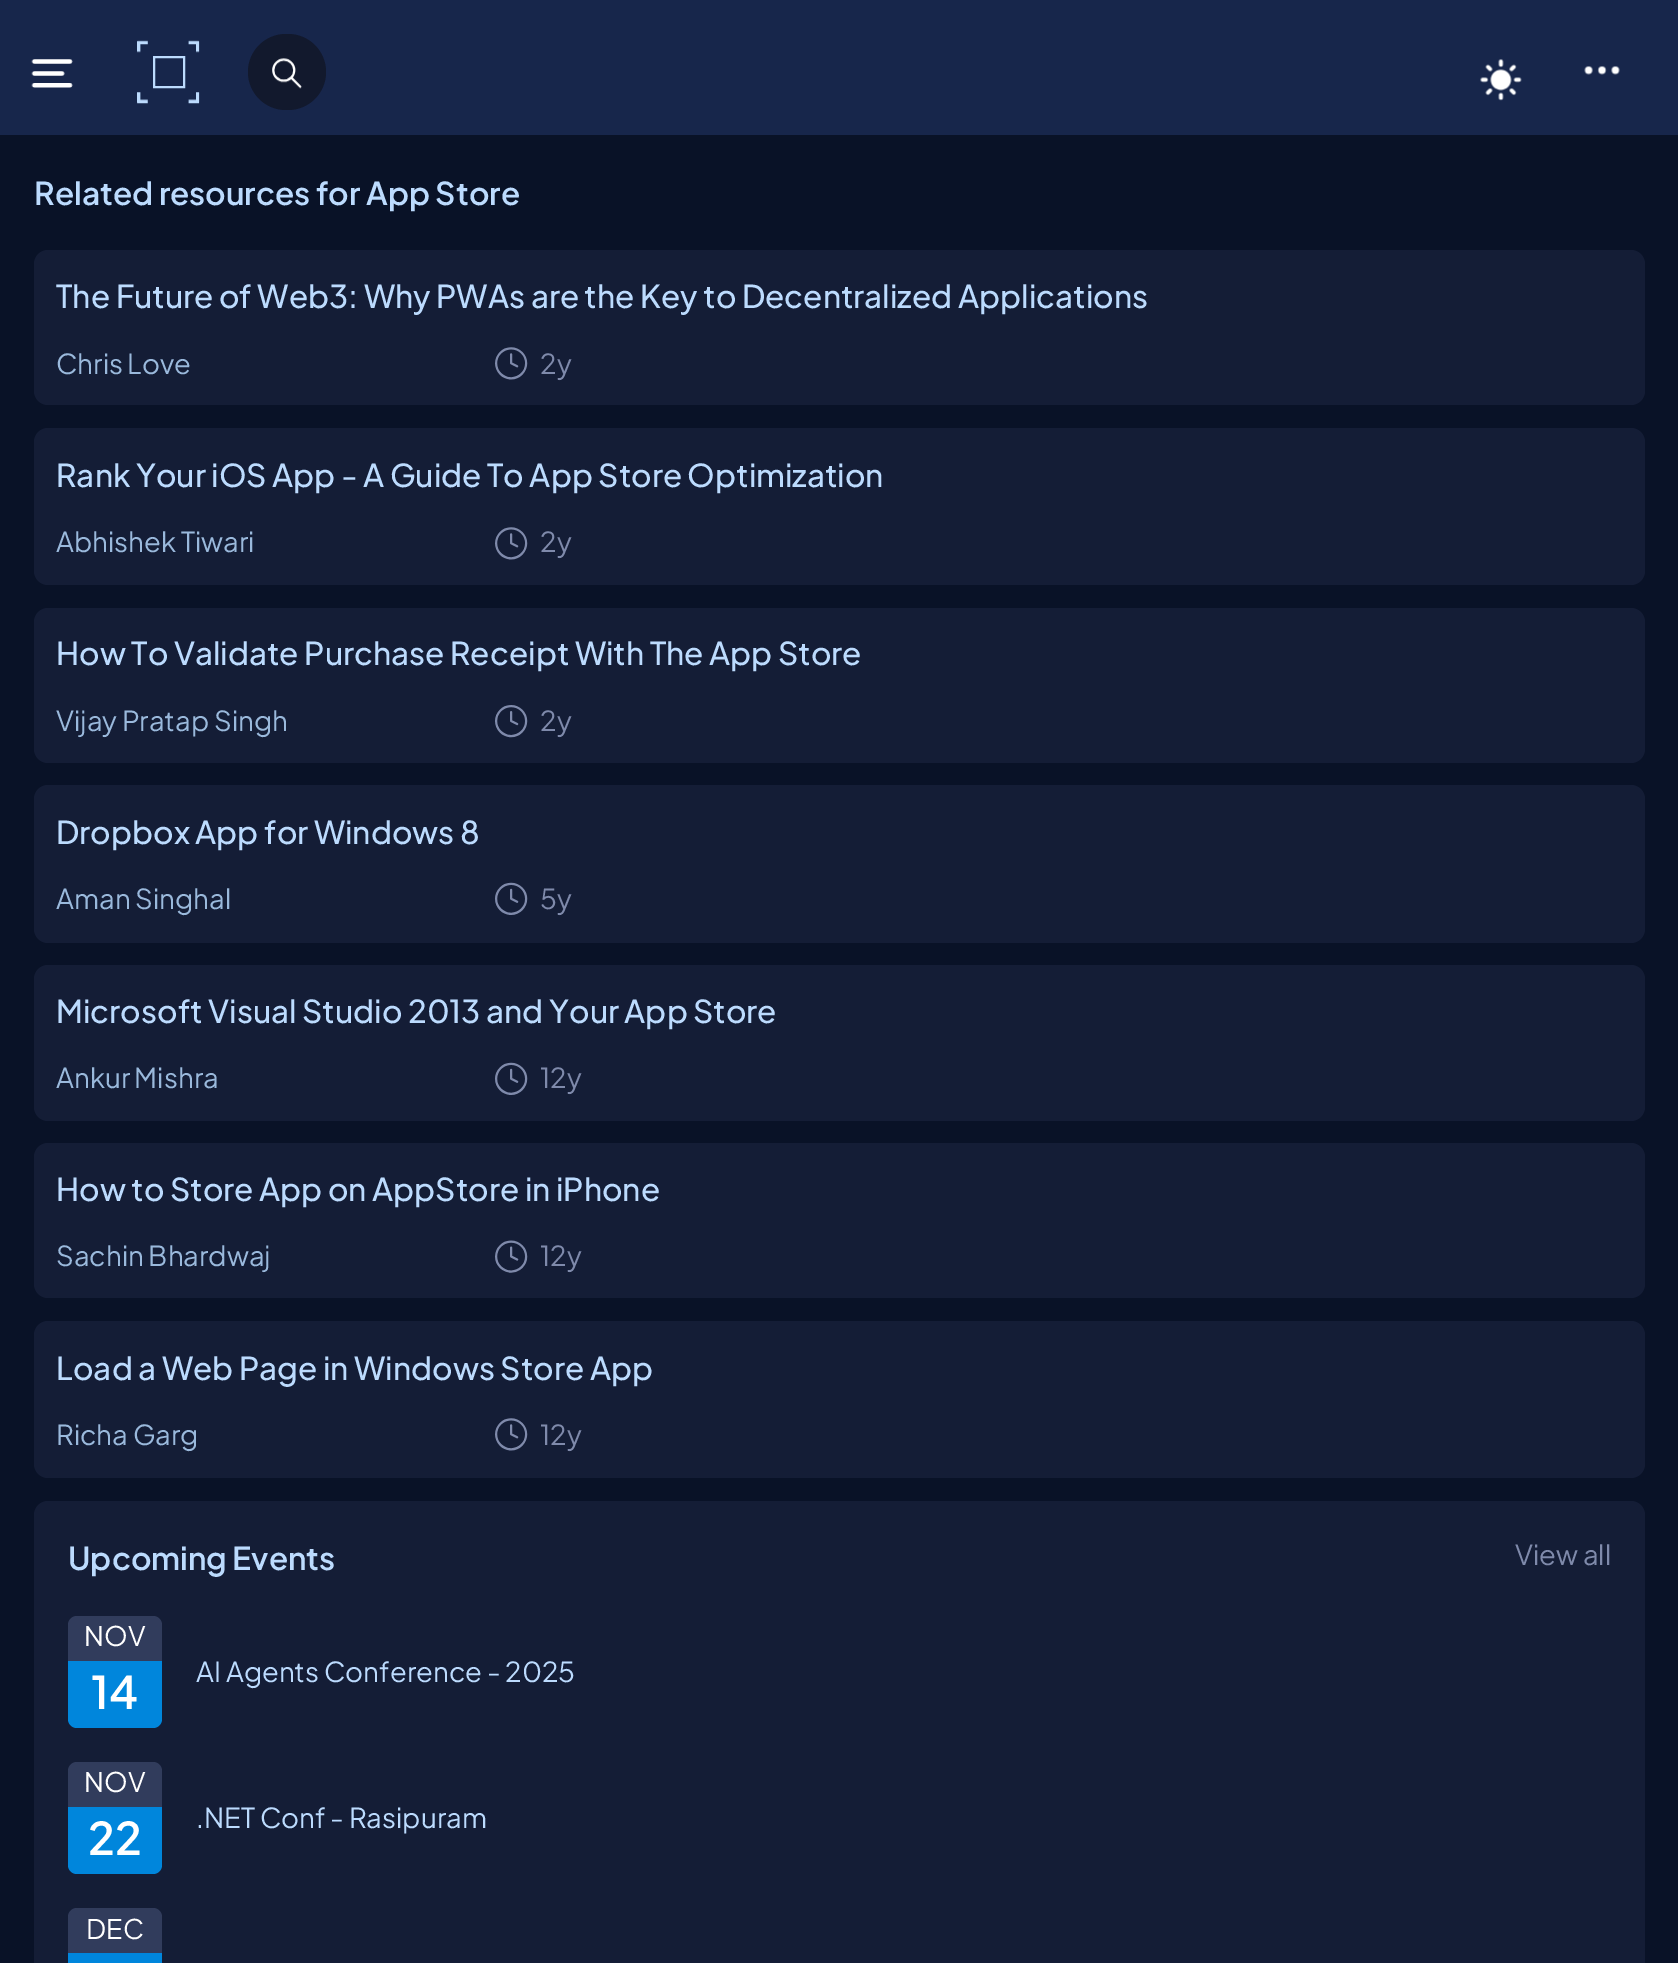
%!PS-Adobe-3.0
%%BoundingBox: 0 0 1678 1963
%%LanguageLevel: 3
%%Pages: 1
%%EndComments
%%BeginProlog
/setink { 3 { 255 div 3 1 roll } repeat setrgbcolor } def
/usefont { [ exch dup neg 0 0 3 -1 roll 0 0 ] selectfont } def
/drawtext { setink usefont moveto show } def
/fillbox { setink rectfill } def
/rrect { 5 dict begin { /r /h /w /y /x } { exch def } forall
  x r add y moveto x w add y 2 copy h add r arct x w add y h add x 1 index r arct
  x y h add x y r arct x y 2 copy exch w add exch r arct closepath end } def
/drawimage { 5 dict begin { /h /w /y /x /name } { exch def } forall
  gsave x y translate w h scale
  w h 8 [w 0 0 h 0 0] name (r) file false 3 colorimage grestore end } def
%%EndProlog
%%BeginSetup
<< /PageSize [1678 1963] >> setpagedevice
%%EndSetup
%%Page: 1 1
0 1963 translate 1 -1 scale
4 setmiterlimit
0 0 1678 1963 9 18 39 fillbox
0 0 1678 135 23 38 75 fillbox
(assets/img1.rgb) 137 40 63 64 drawimage
188 219 254 setink
2 setlinewidth
154 57 30 30 rectstroke
18 25 45 setink
248 34 78 76 38 rrect fill
(assets/img2.rgb) 272 58 30 31 drawimage
(assets/img3.rgb) 1480 59 42 42 drawimage
(assets/img4.rgb) 1584 66 36 9 drawimage
(assets/img5.rgb) 31 59 42 29 drawimage
(Related resources for App Store) 34 205 /PlusJakartaSans-SemiBold 31.5 188 219 254 drawtext
20 29 54 setink
34 250 1611 155 14 rrect fill
(The Future of Web3: Why PWAs are the Key to Decentralized Applications) 56 308 /PlusJakartaSans-Medium 31.5 188 219 254 drawtext
(Chris Love) 56 374 /PlusJakartaSans-Regular 27.5 154 185 220 drawtext
(assets/img6.rgb) 495 347 33 33 drawimage
(2y) 540 374 /PlusJakartaSans-Regular 27.5 127 138 171 drawtext
20 29 54 setink
34 428 1611 157 14 rrect fill
(Rank Your iOS App - A Guide To App Store Optimization) 56 487 /PlusJakartaSans-Medium 31.5 188 219 254 drawtext
(Abhishek Tiwari) 56 552 /PlusJakartaSans-Regular 27.5 154 185 220 drawtext
(assets/img6.rgb) 495 527 33 33 drawimage
(2y) 540 552 /PlusJakartaSans-Regular 27.5 127 138 171 drawtext
20 29 54 setink
34 608 1611 155 14 rrect fill
(How To Validate Purchase Receipt With The App Store) 56 665 /PlusJakartaSans-Medium 31.5 188 219 254 drawtext
(Vijay Pratap Singh) 56 731 /PlusJakartaSans-Regular 27.5 154 185 220 drawtext
(assets/img7.rgb) 495 705 33 33 drawimage
(2y) 540 731 /PlusJakartaSans-Regular 27.5 127 138 171 drawtext
20 29 54 setink
34 785 1611 158 14 rrect fill
(Dropbox App for Windows 8) 56 844 /PlusJakartaSans-Medium 31.5 188 219 254 drawtext
(Aman Singhal) 56 909 /PlusJakartaSans-Regular 27.5 154 185 220 drawtext
(assets/img8.rgb) 495 882 33 33 drawimage
(5y) 540 909 /PlusJakartaSans-Regular 27.5 127 138 171 drawtext
20 29 54 setink
34 965 1611 156 14 rrect fill
(Microsoft Visual Studio 2013 and Your App Store) 56 1023 /PlusJakartaSans-Medium 31.5 188 219 254 drawtext
(Ankur Mishra) 56 1088 /PlusJakartaSans-Regular 27.5 154 185 220 drawtext
(assets/img8.rgb) 495 1062 33 33 drawimage
(12y) 540 1088 /PlusJakartaSans-Regular 27.5 127 138 171 drawtext
20 29 54 setink
34 1143 1611 155 14 rrect fill
(How to Store App on AppStore in iPhone) 56 1201 /PlusJakartaSans-Medium 31.5 188 219 254 drawtext
(Sachin Bhardwaj) 56 1266 /PlusJakartaSans-Regular 27.5 154 185 220 drawtext
(assets/img9.rgb) 495 1240 33 33 drawimage
(12y) 540 1266 /PlusJakartaSans-Regular 27.5 127 138 171 drawtext
20 29 54 setink
34 1321 1611 157 14 rrect fill
(Load a Web Page in Windows Store App) 56 1380 /PlusJakartaSans-Medium 31.5 188 219 254 drawtext
(Richa Garg) 56 1445 /PlusJakartaSans-Regular 27.5 154 185 220 drawtext
(assets/img6.rgb) 495 1418 33 33 drawimage
(12y) 540 1445 /PlusJakartaSans-Regular 27.5 127 138 171 drawtext
20 29 54 setink
34 1501 1611 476 14 rrect fill
(Upcoming Events) 68 1570 /PlusJakartaSans-SemiBold 31.5 188 219 254 drawtext
(View all) 1515 1565 /PlusJakartaSans-Regular 27.5 127 138 171 drawtext
49 60 92 setink
77 1616 moveto 153 1616 lineto 158 1616 162 1620 162 1625 curveto 162 1661 lineto 68 1661 lineto 68 1625 lineto 68 1620 72 1616 77 1616 curveto closepath fill
0 134 220 setink
68 1661 moveto 162 1661 lineto 162 1719 lineto 162 1724 158 1728 153 1728 curveto 77 1728 lineto 72 1728 68 1724 68 1719 curveto closepath fill
(NOV) 84 1646 /PlusJakartaSans-Regular 27 255 255 255 drawtext
(14) 91 1709 /PlusJakartaSans-SemiBold 45 255 255 255 drawtext
(AI Agents Conference - 2025) 196 1682 /PlusJakartaSans-Regular 27.5 188 219 254 drawtext
49 60 92 setink
77 1762 moveto 153 1762 lineto 158 1762 162 1766 162 1771 curveto 162 1807 lineto 68 1807 lineto 68 1771 lineto 68 1766 72 1762 77 1762 curveto closepath fill
0 134 220 setink
68 1807 moveto 162 1807 lineto 162 1865 lineto 162 1870 158 1874 153 1874 curveto 77 1874 lineto 72 1874 68 1870 68 1865 curveto closepath fill
(NOV) 84 1792 /PlusJakartaSans-Regular 27 255 255 255 drawtext
(22) 88 1855 /PlusJakartaSans-SemiBold 45 255 255 255 drawtext
(.NET Conf - Rasipuram) 196 1828 /PlusJakartaSans-Regular 27.5 188 219 254 drawtext
49 60 92 setink
77 1908 moveto 153 1908 lineto 158 1908 162 1912 162 1917 curveto 162 1953 lineto 68 1953 lineto 68 1917 lineto 68 1912 72 1908 77 1908 curveto closepath fill
68 1953 94 10 0 134 220 fillbox
(DEC) 86 1939 /PlusJakartaSans-Regular 27 255 255 255 drawtext
showpage
%%EOF
